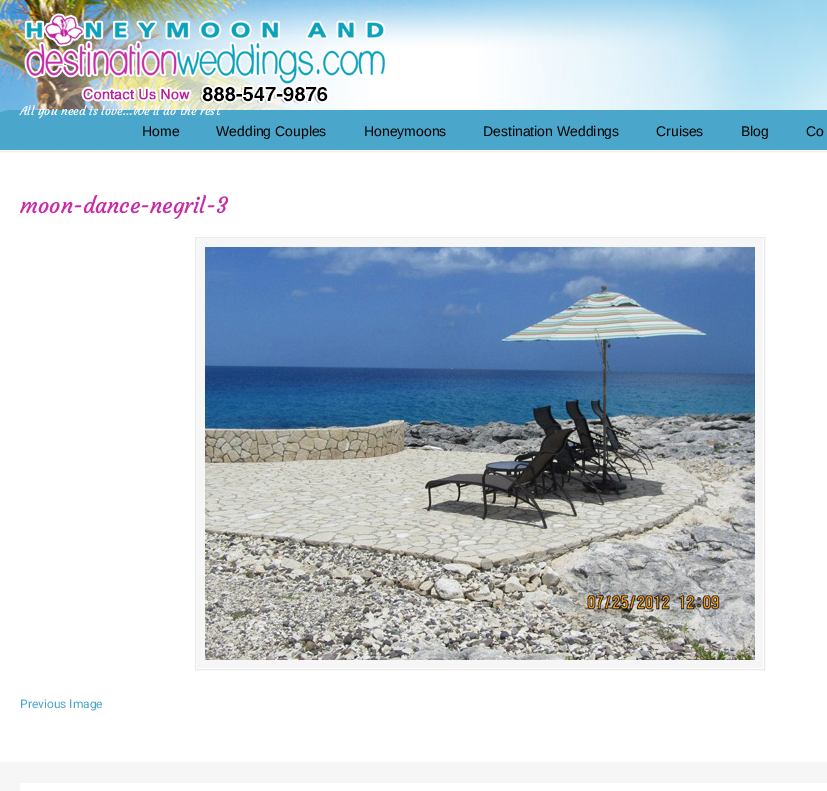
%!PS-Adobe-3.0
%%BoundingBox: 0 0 827 791
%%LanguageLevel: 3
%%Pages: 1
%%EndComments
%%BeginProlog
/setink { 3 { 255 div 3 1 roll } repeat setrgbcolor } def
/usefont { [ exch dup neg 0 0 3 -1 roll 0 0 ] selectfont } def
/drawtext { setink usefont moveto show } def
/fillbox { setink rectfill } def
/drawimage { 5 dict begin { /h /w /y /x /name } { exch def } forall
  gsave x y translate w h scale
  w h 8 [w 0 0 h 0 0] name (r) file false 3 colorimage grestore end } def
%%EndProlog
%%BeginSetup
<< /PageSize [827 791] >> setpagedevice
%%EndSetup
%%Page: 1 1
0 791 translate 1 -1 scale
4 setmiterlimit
0 0 827 791 255 255 255 fillbox
(assets/img1.rgb) 0 0 827 113 drawimage
(assets/img2.rgb) 24 13 362 91 drawimage
(assets/img3.rgb) 0 110 827 40 drawimage
(All you need is love…We’ll do the rest) 20 115 /Courgette-Regular 12 255 255 255 drawtext
(Home) 142 136 /Arimo-Regular 14 0 0 0 drawtext
(Wedding Couples) 216 136 /Arimo-Regular 14 0 0 0 drawtext
(Honeymoons) 364 136 /Arimo-Regular 14 0 0 0 drawtext
(Destination Weddings) 483 136 /Arimo-Regular 14 0 0 0 drawtext
(Cruises) 656 136 /Arimo-Regular 14 0 0 0 drawtext
(Blog) 741 136 /Arimo-Regular 14 0 0 0 drawtext
(Co) 806 136 /Arimo-Regular 14 0 0 0 drawtext
(assets/img4.rgb) 0 151 827 2 drawimage
(moon-dance-negril-3) 20 213 /Courgette-Regular 22 201 43 168 drawtext
197 239 566 429 246 246 246 fillbox
234 234 234 setink
195.5 237.5 569 432 rectstroke
(assets/img5.rgb) 205 247 550 413 drawimage
(Previous Image) 20 708 /Roboto-Regular 12 74 166 202 drawtext
0 762 827 29 246 246 246 fillbox
20 783 807 8 255 255 255 fillbox
showpage
%%EOF
